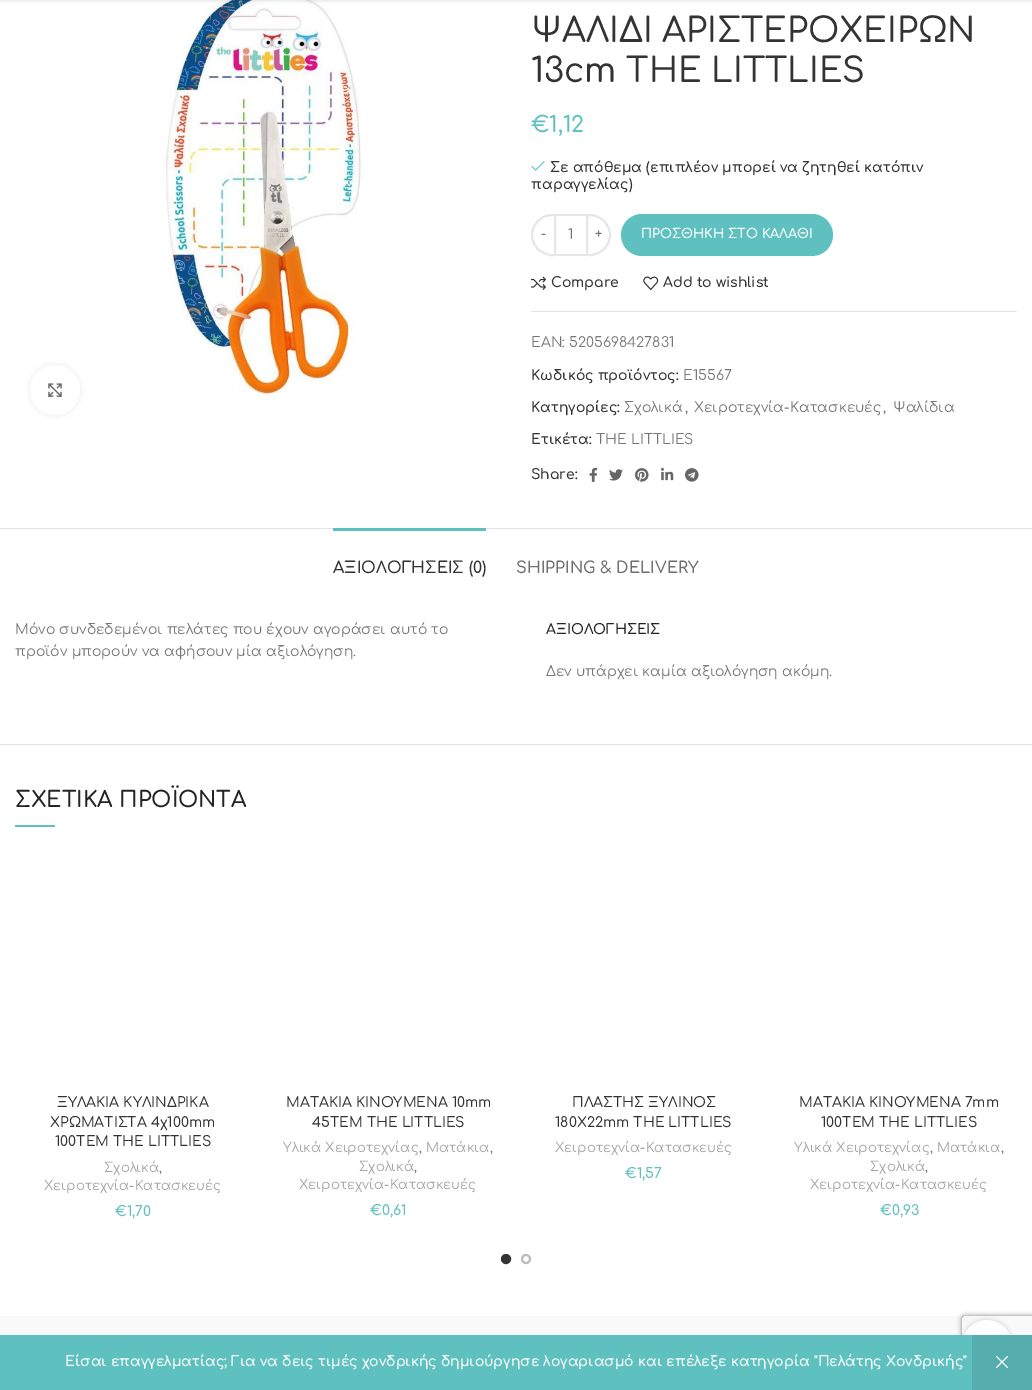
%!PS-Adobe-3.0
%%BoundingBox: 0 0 1032 1390
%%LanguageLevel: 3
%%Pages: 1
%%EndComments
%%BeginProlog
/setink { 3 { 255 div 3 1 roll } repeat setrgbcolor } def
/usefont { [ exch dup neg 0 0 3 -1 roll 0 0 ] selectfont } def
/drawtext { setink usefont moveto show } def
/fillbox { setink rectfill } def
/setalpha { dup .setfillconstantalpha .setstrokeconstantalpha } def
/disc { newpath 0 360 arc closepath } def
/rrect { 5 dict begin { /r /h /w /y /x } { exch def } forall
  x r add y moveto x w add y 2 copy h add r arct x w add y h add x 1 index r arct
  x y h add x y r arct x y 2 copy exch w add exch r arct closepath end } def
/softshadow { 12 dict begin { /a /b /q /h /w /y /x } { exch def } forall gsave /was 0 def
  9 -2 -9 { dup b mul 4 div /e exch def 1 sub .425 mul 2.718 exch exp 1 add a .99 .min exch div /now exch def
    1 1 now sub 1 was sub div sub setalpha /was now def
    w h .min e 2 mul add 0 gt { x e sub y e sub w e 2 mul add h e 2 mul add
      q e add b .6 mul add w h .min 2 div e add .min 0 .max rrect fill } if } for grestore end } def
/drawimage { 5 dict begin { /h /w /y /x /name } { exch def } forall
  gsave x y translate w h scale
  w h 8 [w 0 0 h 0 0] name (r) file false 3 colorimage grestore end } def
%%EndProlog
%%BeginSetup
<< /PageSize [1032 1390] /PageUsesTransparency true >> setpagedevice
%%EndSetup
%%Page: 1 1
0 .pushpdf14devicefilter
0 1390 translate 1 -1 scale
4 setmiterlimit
0 0 1032 1390 255 255 255 fillbox
(assets/img2.rgb) 164 0 197 401 drawimage
0 0 0 setink
0 -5 1032 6 0 1.5 0.1 softshadow
30 365 50 50 25 2.5 0.08 softshadow
255 255 255 setink
55 390 25 disc fill
(assets/img1.rgb) 48 383 14 14 drawimage
(ΨΑΛΙΔΙ ΑΡΙΣΤΕΡΟΧΕΙΡΩΝ) 531 42 /Comfortaa-Medium 34 51 51 51 drawtext
(13cm THE LITTLIES) 531 82 /Comfortaa-Medium 34 51 51 51 drawtext
(€1,12) 531 132 /Comfortaa-SemiBold 22 94 193 192 drawtext
(assets/img3.rgb) 531 161 14 10 drawimage
(Σε απόθεμα \(επιπλέον μπορεί να ζητηθεί κατόπιν) 550 172 /Comfortaa-SemiBold 14 51 51 51 drawtext
(παραγγελίας\)) 531 189 /Comfortaa-SemiBold 14 51 51 51 drawtext
230 230 230 setink
2 setlinewidth
552 215 moveto 555 215 lineto 555 255 lineto 552 255 lineto 541 255 532 246 532 235 curveto 532 224 541 215 552 215 curveto closepath stroke
(-) 541 238 /Comfortaa-SemiBold 13 119 119 119 drawtext
556 214 30 2 230 230 230 fillbox
556 254 30 2 230 230 230 fillbox
(1) 568 239 /Comfortaa-Regular 14 119 119 119 drawtext
230 230 230 setink
587 215 moveto 590 215 lineto 601 215 610 224 610 235 curveto 610 246 601 255 590 255 curveto 587 255 lineto closepath stroke
(+) 595 238 /Comfortaa-SemiBold 13 119 119 119 drawtext
94 193 192 setink
621 214 212 42 21 rrect fill
(ΠΡΟΣΘΗΚΗ ΣΤΟ ΚΑΛΑΘΙ) 641 238 /Comfortaa-SemiBold 13 255 255 255 drawtext
(assets/img4.rgb) 531 276 15 14 drawimage
(Compare) 551 287 /Comfortaa-SemiBold 14 51 51 51 drawtext
(assets/img5.rgb) 643 276 16 14 drawimage
(Add to wishlist) 663 287 /Comfortaa-SemiBold 14 51 51 51 drawtext
531 311 486 1 228 228 228 fillbox
(EAN: 5205698427831) 531 347 /Comfortaa-Regular 14 119 119 119 drawtext
(Κωδικός προϊόντος:) 531 380 /Comfortaa-SemiBold 14 51 51 51 drawtext
(Ε15567) 683 380 /Comfortaa-Regular 14 119 119 119 drawtext
(Κατηγορίες:) 531 412 /Comfortaa-SemiBold 14 51 51 51 drawtext
(Σχολικά) 624 412 /Comfortaa-Regular 14 119 119 119 drawtext
(,) 685 412 /Comfortaa-Regular 14 119 119 119 drawtext
(Χειροτεχνία-Κατασκευές) 694 412 /Comfortaa-Regular 14 119 119 119 drawtext
(,) 883 412 /Comfortaa-Regular 14 119 119 119 drawtext
(Ψαλίδια) 893 412 /Comfortaa-Regular 14 119 119 119 drawtext
(Ετικέτα:) 531 444 /Comfortaa-SemiBold 14 51 51 51 drawtext
(THE LITTLIES) 596 444 /Comfortaa-Regular 14 119 119 119 drawtext
(Share:) 531 479 /Comfortaa-SemiBold 14 51 51 51 drawtext
(assets/img6.rgb) 589 467 9 15 drawimage
(assets/img7.rgb) 609 469 14 12 drawimage
(assets/img8.rgb) 635 468 14 14 drawimage
(assets/img9.rgb) 661 467 13 14 drawimage
(assets/img10.rgb) 685 468 14 14 drawimage
0 528 1032 1 228 228 228 fillbox
0 744 1032 1 228 228 228 fillbox
333 528 153 3 94 193 192 fillbox
(ΑΞΙΟΛΟΓΗΣΕΙΣ \(0\)) 333 573 /Comfortaa-SemiBold 16 51 51 51 drawtext
(SHIPPING & DELIVERY) 516 573 /Comfortaa-SemiBold 16 112 112 112 drawtext
(Μόνο συνδεδεμένοι πελάτες που έχουν αγοράσει αυτό το) 15 634 /Comfortaa-Regular 14 119 119 119 drawtext
(προϊόν μπορούν να αφήσουν μία αξιολόγηση.) 15 656 /Comfortaa-Regular 14 119 119 119 drawtext
(ΑΞΙΟΛΟΓΗΣΕΙΣ) 546 634 /Comfortaa-SemiBold 14 36 36 36 drawtext
(Δεν υπάρχει καμία αξιολόγηση ακόμη.) 546 676 /Comfortaa-Regular 14 119 119 119 drawtext
(ΣΧΕΤΙΚΑ ΠΡΟΪΟΝΤΑ) 15 807 /Comfortaa-SemiBold 22 36 36 36 drawtext
15 825 40 2 94 193 192 fillbox
(ΞΥΛΑΚΙΑ ΚΥΛΙΝΔΡΙΚΑ) 57 1107 /Comfortaa-Medium 14 51 51 51 drawtext
(ΧΡΩΜΑΤΙΣΤΑ 4χ100mm) 50 1127 /Comfortaa-Medium 14 51 51 51 drawtext
(100TEM THE LITTLIES) 55 1146 /Comfortaa-Medium 14 51 51 51 drawtext
(Σχολικά) 104 1172 /Comfortaa-Regular 13.25 165 165 165 drawtext
(,) 159 1172 /Comfortaa-Regular 13.25 119 119 119 drawtext
(Χειροτεχνία-Κατασκευές) 44 1190 /Comfortaa-Regular 13.25 165 165 165 drawtext
(€1,70) 115 1216 /Comfortaa-SemiBold 14 94 193 192 drawtext
(ΜΑΤΑΚΙΑ ΚΙΝΟΥΜΕΝΑ 10mm) 286 1107 /Comfortaa-Medium 14 51 51 51 drawtext
(45TEM THE LITTLIES) 312 1127 /Comfortaa-Medium 14 51 51 51 drawtext
(Υλικά Χειροτεχνίας) 283 1152 /Comfortaa-Regular 13.25 165 165 165 drawtext
(,) 419 1152 /Comfortaa-Regular 13.25 119 119 119 drawtext
(Ματάκια) 426 1152 /Comfortaa-Regular 13.25 165 165 165 drawtext
(,) 490 1152 /Comfortaa-Regular 13.25 119 119 119 drawtext
(Σχολικά) 359 1171 /Comfortaa-Regular 13.25 165 165 165 drawtext
(,) 414 1171 /Comfortaa-Regular 13.25 119 119 119 drawtext
(Χειροτεχνία-Κατασκευές) 299 1189 /Comfortaa-Regular 13.25 165 165 165 drawtext
(€0,61) 370 1215 /Comfortaa-SemiBold 14 94 193 192 drawtext
(ΠΛΑΣΤΗΣ ΞΥΛΙΝΟΣ) 572 1107 /Comfortaa-Medium 14 51 51 51 drawtext
(180X22mm THE LITTLIES) 555 1127 /Comfortaa-Medium 14 51 51 51 drawtext
(Χειροτεχνία-Κατασκευές) 555 1152 /Comfortaa-Regular 13.25 165 165 165 drawtext
(€1,57) 625 1178 /Comfortaa-SemiBold 14 94 193 192 drawtext
(ΜΑΤΑΚΙΑ KINOYMENA 7mm) 799 1107 /Comfortaa-Medium 14 51 51 51 drawtext
(100TEM THE LITTLIES) 821 1127 /Comfortaa-Medium 14 51 51 51 drawtext
(Υλικά Χειροτεχνίας) 794 1152 /Comfortaa-Regular 13.25 165 165 165 drawtext
(,) 930 1152 /Comfortaa-Regular 13.25 119 119 119 drawtext
(Ματάκια) 937 1152 /Comfortaa-Regular 13.25 165 165 165 drawtext
(,) 1001 1152 /Comfortaa-Regular 13.25 119 119 119 drawtext
(Σχολικά) 870 1171 /Comfortaa-Regular 13.25 165 165 165 drawtext
(,) 925 1171 /Comfortaa-Regular 13.25 119 119 119 drawtext
(Χειροτεχνία-Κατασκευές) 810 1189 /Comfortaa-Regular 13.25 165 165 165 drawtext
(€0,93) 880 1215 /Comfortaa-SemiBold 14 94 193 192 drawtext
51 51 51 setink
506 1259 4 disc gsave fill grestore
stroke
187 187 187 setink
526 1259 4 disc stroke
(α) 340 94 /Comfortaa-Regular 14 251 246 244 drawtext
0 1316 1032 19 249 249 249 fillbox
gsave
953 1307 moveto 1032 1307 lineto 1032 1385 lineto 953 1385 lineto closepath 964 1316 moveto 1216 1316 lineto 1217 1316 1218 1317 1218 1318 curveto 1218 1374 lineto 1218 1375 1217 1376 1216 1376 curveto 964 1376 lineto 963 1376 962 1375 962 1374 curveto 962 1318 lineto 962 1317 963 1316 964 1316 curveto closepath eoclip newpath
128 128 128 setink
962 1316 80 60 2 2.5 1 softshadow
grestore
gsave
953 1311 moveto 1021 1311 lineto 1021 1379 lineto 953 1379 lineto closepath 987 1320 moveto 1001 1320 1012 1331 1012 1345 curveto 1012 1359 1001 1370 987 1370 curveto 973 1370 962 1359 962 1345 curveto 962 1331 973 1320 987 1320 curveto closepath eoclip newpath
0 0 0 setink
962 1320 50 50 25 2.5 0.17 softshadow
grestore
0.9 setalpha
255 255 255 setink
987 1345 25 disc fill
1 setalpha
0 1335 972 55 94 193 192 fillbox
(Είσαι επαγγελματίας; Για να δεις τιμές χονδρικής δημιούργησε λογαριασμό και επέλεξε κατηγορία "Πελάτης Χονδρικής") 65 1366 /Comfortaa-SemiBold 14 255 255 255 drawtext
972 1335 60 55 85 174 173 fillbox
(assets/img11.rgb) 995 1355 14 14 drawimage
.poppdf14devicefilter showpage
%%EOF
